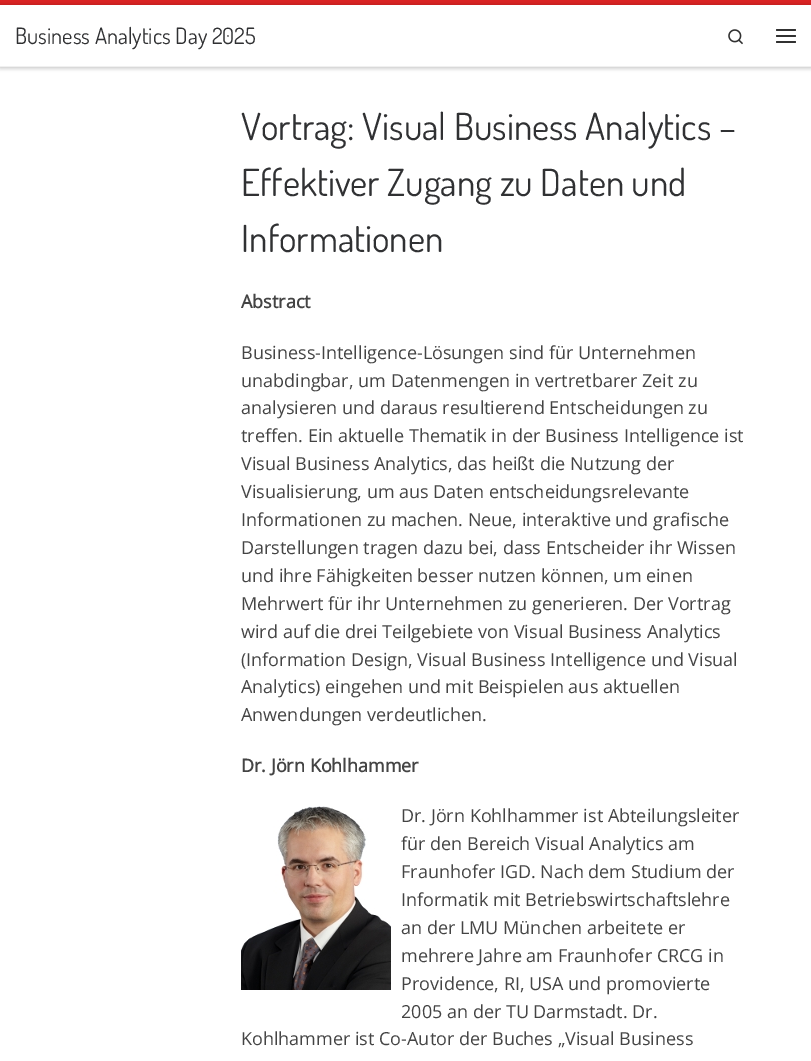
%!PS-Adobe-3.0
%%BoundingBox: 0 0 811 1061
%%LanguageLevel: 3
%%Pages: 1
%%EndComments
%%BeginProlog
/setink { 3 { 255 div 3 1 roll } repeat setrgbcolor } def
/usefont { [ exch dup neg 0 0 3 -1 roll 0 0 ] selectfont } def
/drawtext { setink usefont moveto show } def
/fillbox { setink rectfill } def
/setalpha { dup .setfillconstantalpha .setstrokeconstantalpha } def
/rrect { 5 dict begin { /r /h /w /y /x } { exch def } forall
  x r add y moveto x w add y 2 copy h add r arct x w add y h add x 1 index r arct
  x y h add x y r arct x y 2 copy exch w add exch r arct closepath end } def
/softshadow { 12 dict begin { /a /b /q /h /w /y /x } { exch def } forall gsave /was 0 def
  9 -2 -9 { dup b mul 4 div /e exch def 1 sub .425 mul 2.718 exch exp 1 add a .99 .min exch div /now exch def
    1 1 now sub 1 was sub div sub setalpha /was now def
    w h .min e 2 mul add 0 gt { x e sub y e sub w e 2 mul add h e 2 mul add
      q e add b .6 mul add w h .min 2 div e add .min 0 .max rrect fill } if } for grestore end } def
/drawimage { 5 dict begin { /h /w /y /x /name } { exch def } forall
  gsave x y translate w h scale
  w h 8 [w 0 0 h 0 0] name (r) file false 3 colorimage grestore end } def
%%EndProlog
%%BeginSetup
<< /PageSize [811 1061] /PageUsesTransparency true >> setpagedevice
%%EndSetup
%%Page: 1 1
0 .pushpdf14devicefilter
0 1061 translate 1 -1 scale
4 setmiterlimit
0 0 811 1061 255 255 255 fillbox
gsave
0 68 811 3 rectclip
102 102 102 setink
0 2 811 68 0 1 0.08 softshadow
grestore
0 0 811 5 221 35 35 fillbox
0 67 811 1 239 239 239 fillbox
gsave
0 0 moveto 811 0 lineto 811 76 lineto 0 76 lineto closepath 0 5 moveto 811 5 lineto 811 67 lineto 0 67 lineto closepath eoclip newpath
0 0 0 setink
0 5 811 62 0 2.5 0.2 softshadow
grestore
(Business Analytics Day 2025) 15 44 /Dosis-Regular 22.5 48 49 51 drawtext
(assets/img1.rgb) 728 29 15 16 drawimage
49 49 49 setink
776 29 20 2 1 rrect fill
776 35 20 2 1 rrect fill
776 41 20 2 1 rrect fill
0 66 811 1 240 240 240 fillbox
(Vortrag: Visual Business Analytics –) 241 140 /Dosis-Regular 37.25 48 49 51 drawtext
(Effektiver Zugang zu Daten und) 241 196 /Dosis-Regular 37.25 48 49 51 drawtext
(Informationen) 241 252 /Dosis-Regular 37.25 48 49 51 drawtext
(Abstract) 241 308 /OpenSans-Bold 18 68 68 68 drawtext
(Business-Intelligence-Lösungen sind für Unternehmen) 241 359 /OpenSans-Regular 18 68 68 68 drawtext
(unabdingbar, um Datenmengen in vertretbarer Zeit zu) 241 387 /OpenSans-Regular 18 68 68 68 drawtext
(analysieren und daraus resultierend Entscheidungen zu) 241 414 /OpenSans-Regular 18 68 68 68 drawtext
(treffen. Ein aktuelle Thematik in der Business Intelligence ist) 241 442 /OpenSans-Regular 18 68 68 68 drawtext
(Visual Business Analytics, das heißt die Nutzung der) 241 470 /OpenSans-Regular 18 68 68 68 drawtext
(Visualisierung, um aus Daten entscheidungsrelevante) 241 498 /OpenSans-Regular 18 68 68 68 drawtext
(Informationen zu machen. Neue, interaktive und grafische) 241 526 /OpenSans-Regular 18 68 68 68 drawtext
(Darstellungen tragen dazu bei, dass Entscheider ihr Wissen) 241 554 /OpenSans-Regular 18 68 68 68 drawtext
(und ihre Fähigkeiten besser nutzen können, um einen) 241 582 /OpenSans-Regular 18 68 68 68 drawtext
(Mehrwert für ihr Unternehmen zu generieren. Der Vortrag) 241 610 /OpenSans-Regular 18 68 68 68 drawtext
(wird auf die drei Teilgebiete von Visual Business Analytics) 241 638 /OpenSans-Regular 18 68 68 68 drawtext
(\(Information Design, Visual Business Intelligence und Visual) 241 666 /OpenSans-Regular 18 68 68 68 drawtext
(Analytics\) eingehen und mit Beispielen aus aktuellen) 241 693 /OpenSans-Regular 18 68 68 68 drawtext
(Anwendungen verdeutlichen.) 241 721 /OpenSans-Regular 18 68 68 68 drawtext
(Dr. Jörn Kohlhammer) 241 772 /OpenSans-Bold 18 68 68 68 drawtext
(assets/img2.rgb) 241 806 150 184 drawimage
(Dr. Jörn Kohlhammer ist Abteilungsleiter) 401 822 /OpenSans-Regular 18 68 68 68 drawtext
(für den Bereich Visual Analytics am) 401 850 /OpenSans-Regular 18 68 68 68 drawtext
(Fraunhofer IGD. Nach dem Studium der) 401 878 /OpenSans-Regular 18 68 68 68 drawtext
(Informatik mit Betriebswirtschaftslehre) 401 906 /OpenSans-Regular 18 68 68 68 drawtext
(an der LMU München arbeitete er) 401 934 /OpenSans-Regular 18 68 68 68 drawtext
(mehrere Jahre am Fraunhofer CRCG in) 401 962 /OpenSans-Regular 18 68 68 68 drawtext
(Providence, RI, USA und promovierte) 401 990 /OpenSans-Regular 18 68 68 68 drawtext
(2005 an der TU Darmstadt. Dr.) 401 1018 /OpenSans-Regular 18 68 68 68 drawtext
(Kohlhammer ist Co-Autor der Buches „Visual Business) 241 1045 /OpenSans-Regular 18 68 68 68 drawtext
.poppdf14devicefilter showpage
%%EOF
